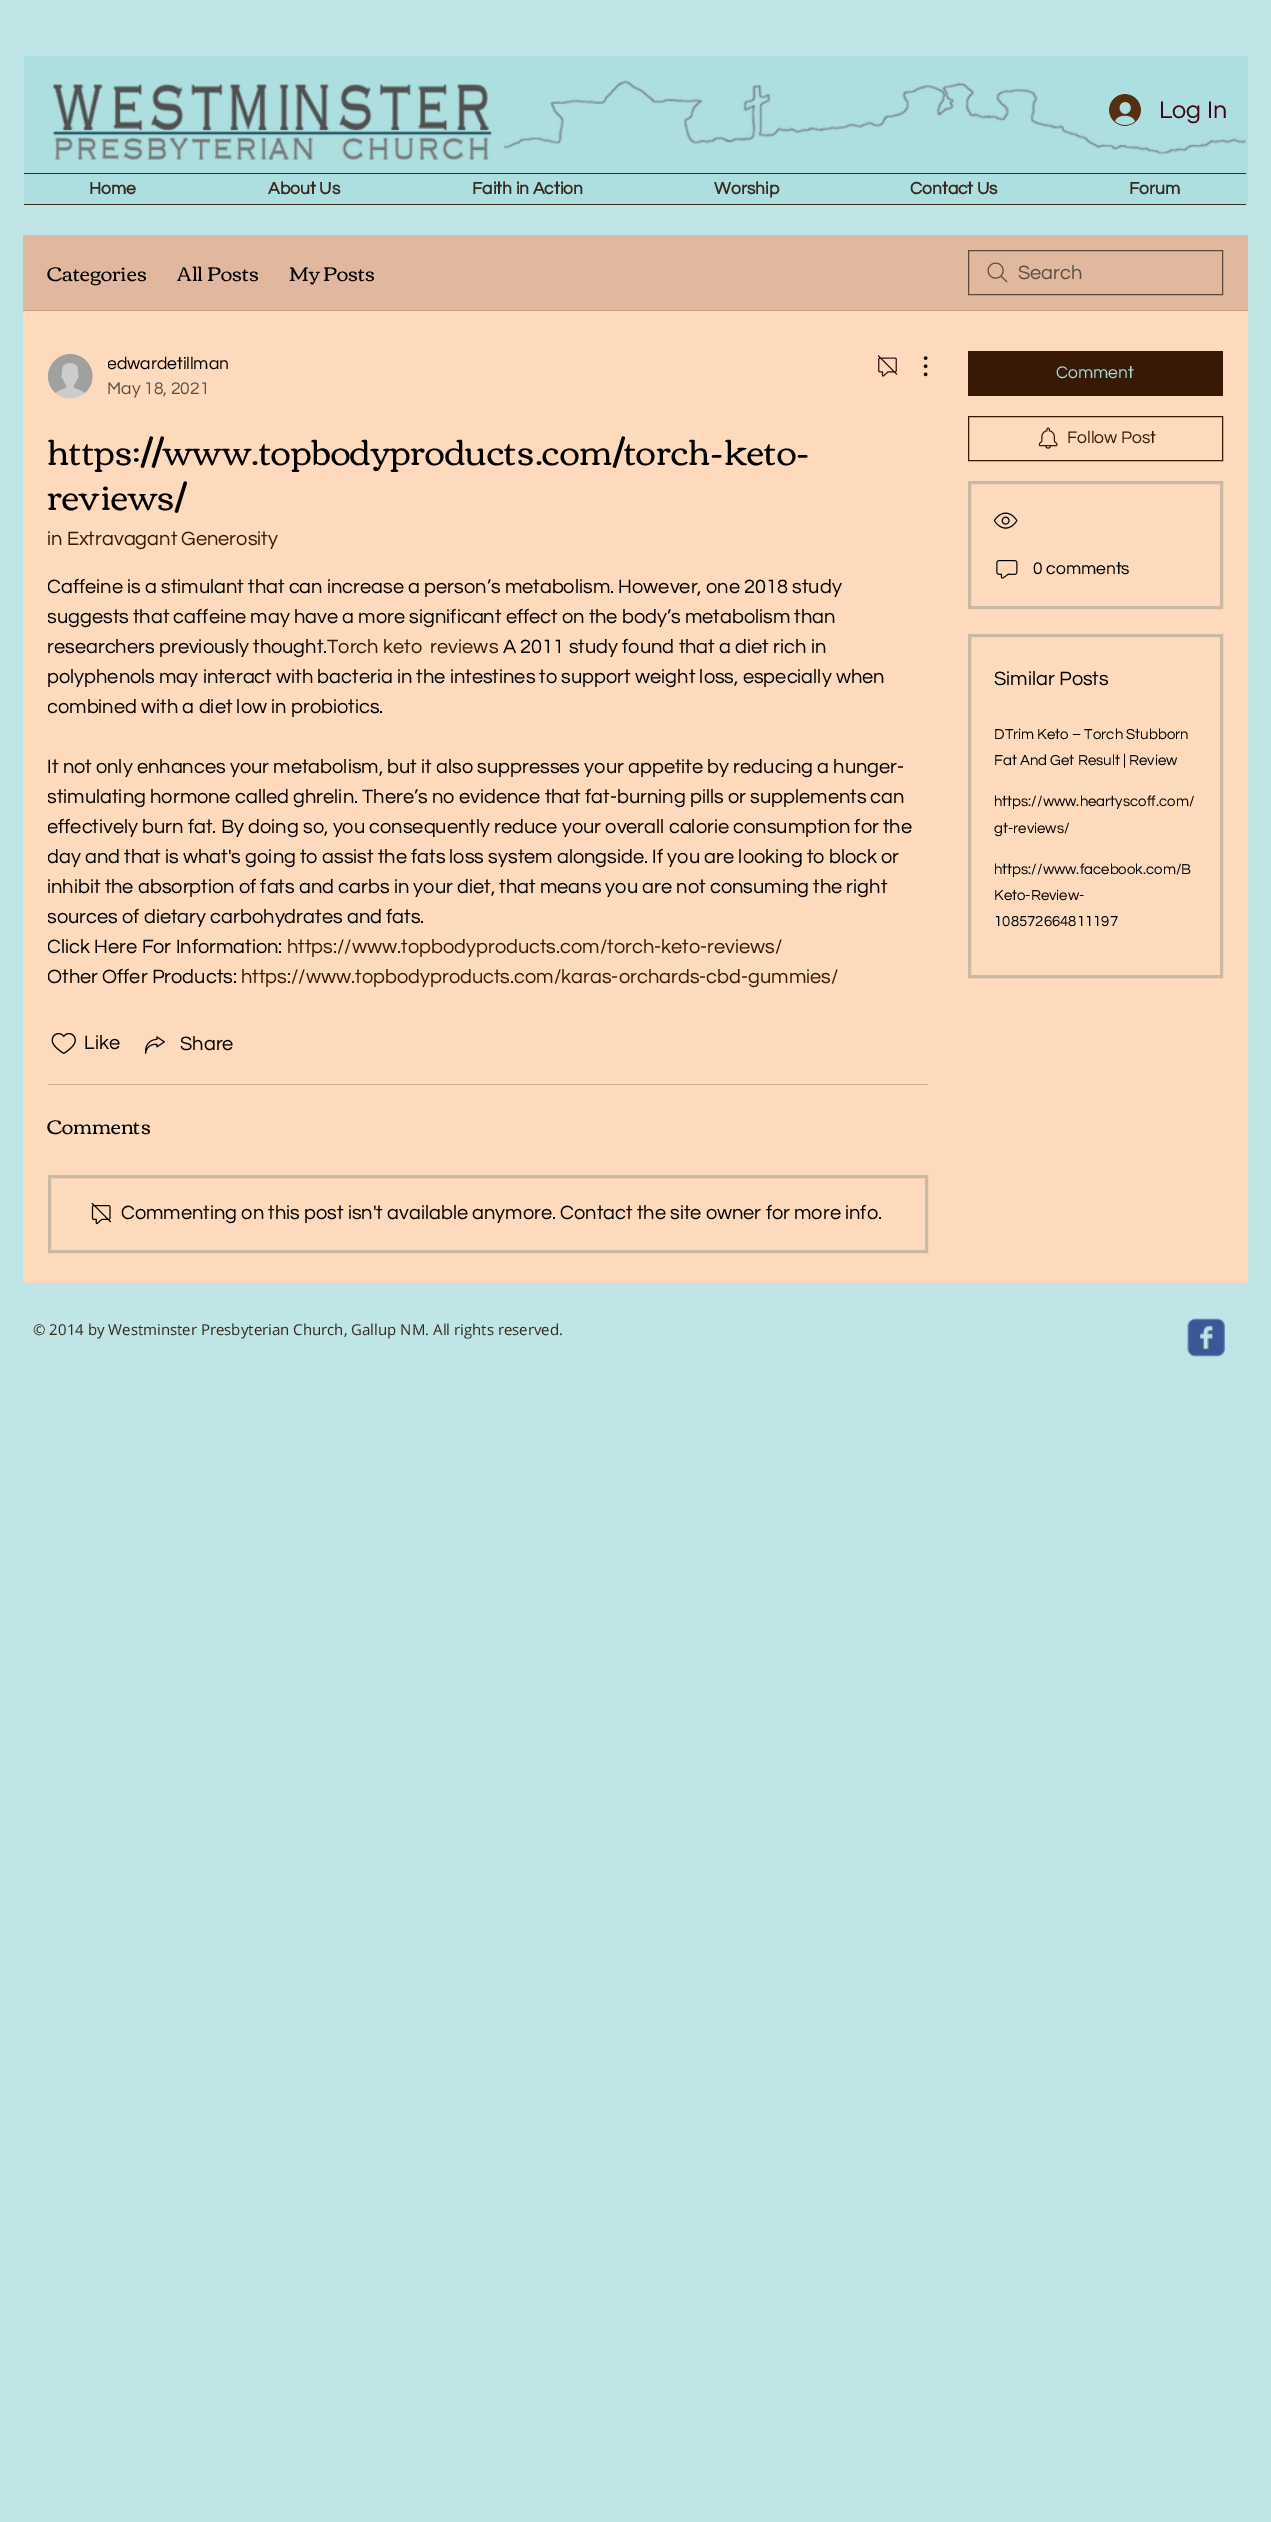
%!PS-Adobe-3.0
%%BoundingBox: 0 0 1271 2522
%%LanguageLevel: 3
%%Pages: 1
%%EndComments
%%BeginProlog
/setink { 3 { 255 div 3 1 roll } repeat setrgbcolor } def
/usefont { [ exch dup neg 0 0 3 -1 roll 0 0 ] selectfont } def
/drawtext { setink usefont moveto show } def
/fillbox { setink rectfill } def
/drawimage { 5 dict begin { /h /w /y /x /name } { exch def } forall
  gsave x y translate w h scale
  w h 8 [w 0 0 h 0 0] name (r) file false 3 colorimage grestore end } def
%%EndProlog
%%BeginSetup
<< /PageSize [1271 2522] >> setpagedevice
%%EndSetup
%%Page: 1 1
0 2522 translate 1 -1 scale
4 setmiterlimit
0 0 1271 2522 191 229 230 fillbox
24 56 1224 149 173 222 224 fillbox
(assets/img3.rgb) 503 80 743 74 drawimage
(assets/img1.rgb) 1109 94 32 32 drawimage
(Log In) 1159 118 /Questrial-Regular 25 63 4 16 drawtext
(assets/img2.rgb) 52 84 440 76 drawimage
24 173 1222 1 55 42 29 fillbox
24 204 1222 1 55 42 29 fillbox
(Home) 89 194 /Questrial-Bold 17.5 55 42 29 drawtext
(About Us) 268 194 /Questrial-Bold 17.5 55 42 29 drawtext
(Faith in Action) 472 194 /Questrial-Bold 17.5 55 42 29 drawtext
(Worship) 714 194 /Questrial-Bold 17.5 55 42 29 drawtext
(Contact Us) 910 194 /Questrial-Bold 17.5 55 42 29 drawtext
(Forum) 1129 194 /Questrial-Bold 17.5 55 42 29 drawtext
23 235 1225 75 225 184 157 fillbox
23 310 1225 1 191 156 131 fillbox
(Categories) 47 281 /Corben-Regular 20 0 0 0 drawtext
(All Posts) 177 281 /Corben-Regular 20 0 0 0 drawtext
(My Posts) 289 281 /Corben-Regular 20 0 0 0 drawtext
(assets/img4.rgb) 987 262 21 21 drawimage
90 74 63 setink
968.5 250.5 254 44 rectstroke
(Search) 1018 279 /Questrial-Regular 20 91 78 68 drawtext
23 311 1225 972 254 218 189 fillbox
(assets/img5.rgb) 48 354 45 45 drawimage
gsave
108 351 121 25 rectclip
(edwardetillman) 107 369 /Questrial-Regular 17.5 0 0 0 drawtext
grestore
(May 18, 2021) 107 394 /Questrial-Regular 17.5 91 78 68 drawtext
(assets/img6.rgb) 878 355 20 22 drawimage
(assets/img7.rgb) 923 356 5 21 drawimage
(https://www.topbodyproducts.com/torch-keto-) 47 465 /Corben-Regular 35 0 0 0 drawtext
(reviews/) 47 510 /Corben-Regular 35 0 0 0 drawtext
(in Extravagant Generosity) 47 545 /Questrial-Regular 20 55 25 5 drawtext
gsave
48 571 880 420 rectclip
(Caffeine is a stimulant that can increase a person’s metabolism. However, one 2018 study) 47 593 /Questrial-Regular 20 0 0 0 drawtext
(suggests that caffeine may have a more significant effect on the body’s metabolism than) 47 623 /Questrial-Regular 20 0 0 0 drawtext
grestore
(researchers previously thought.) 47 653 /Questrial-Regular 20 0 0 0 drawtext
(Torch keto  reviews) 327 653 /Questrial-Regular 20 55 25 5 drawtext
(A 2011 study found that a diet rich in) 503 653 /Questrial-Regular 20 0 0 0 drawtext
(polyphenols may interact with bacteria in the intestines to support weight loss, especially when) 47 683 /Questrial-Regular 20 0 0 0 drawtext
gsave
48 571 880 420 rectclip
(combined with a diet low in probiotics.) 47 713 /Questrial-Regular 20 0 0 0 drawtext
grestore
(It not only enhances your metabolism, but it also suppresses your appetite by reducing a hunger-) 47 773 /Questrial-Regular 20 0 0 0 drawtext
gsave
48 571 880 420 rectclip
(stimulating hormone called ghrelin. There’s no evidence that fat-burning pills or supplements can) 47 803 /Questrial-Regular 20 0 0 0 drawtext
(effectively burn fat. By doing so, you consequently reduce your overall calorie consumption for the) 47 833 /Questrial-Regular 20 0 0 0 drawtext
(day and that is what's going to assist the fats loss system alongside. If you are looking to block or) 47 863 /Questrial-Regular 20 0 0 0 drawtext
grestore
(inhibit the absorption of fats and carbs in your diet, that means you are not consuming the right) 47 893 /Questrial-Regular 20 0 0 0 drawtext
gsave
48 571 880 420 rectclip
(sources of dietary carbohydrates and fats.) 47 923 /Questrial-Regular 20 0 0 0 drawtext
(Click Here For Information:) 47 953 /Questrial-Regular 20 0 0 0 drawtext
grestore
(https://www.topbodyproducts.com/torch-keto-reviews/) 287 953 /Questrial-Regular 20 55 25 5 drawtext
gsave
48 571 880 420 rectclip
(Other Offer Products:) 47 983 /Questrial-Regular 20 0 0 0 drawtext
grestore
(https://www.topbodyproducts.com/karas-orchards-cbd-gummies/) 241 983 /Questrial-Regular 20 55 25 5 drawtext
(assets/img8.rgb) 51 1032 25 22 drawimage
(Like) 84 1049 /Questrial-Regular 20 0 0 0 drawtext
(assets/img9.rgb) 145 1036 20 18 drawimage
(Share) 180 1050 /Questrial-Regular 20 0 0 0 drawtext
48 1084 880 1 203 174 151 fillbox
(Comments) 47 1134 /Corben-Regular 20 0 0 0 drawtext
203 186 163 setink
3 setlinewidth
49.5 1176.5 877 75 rectstroke
(assets/img10.rgb) 91 1203 20 22 drawimage
(Commenting on this post isn't available anymore. Contact the site owner for more info.) 121 1219 /Questrial-Regular 20 0 0 0 drawtext
968 351 255 45 55 25 5 fillbox
(Comment) 1056 378 /Questrial-Regular 17.5 165 219 221 drawtext
55 25 5 setink
1 setlinewidth
968.5 416.5 254 44 rectstroke
(assets/img11.rgb) 1038 427 20 22 drawimage
(Follow Post) 1067 443 /Questrial-Regular 17.5 55 25 5 drawtext
203 186 163 setink
3 setlinewidth
969.5 482.5 252 125 rectstroke
(assets/img12.rgb) 993 512 25 17 drawimage
(assets/img13.rgb) 996 560 22 19 drawimage
(0 comments) 1033 574 /Questrial-Regular 17.5 0 0 0 drawtext
203 186 163 setink
969.5 635.5 252 341 rectstroke
(Similar Posts) 994 685 /Questrial-Regular 20 0 0 0 drawtext
(DTrim Keto – Torch Stubborn) 994 739 /Questrial-Regular 15 0 0 0 drawtext
(Fat And Get Result | Review) 994 765 /Questrial-Regular 15 0 0 0 drawtext
(https://www.heartyscoff.com/) 994 806 /Questrial-Regular 15 0 0 0 drawtext
(gt-reviews/) 994 833 /Questrial-Regular 15 0 0 0 drawtext
(https://www.facebook.com/B) 994 874 /Questrial-Regular 15 0 0 0 drawtext
(Keto-Review-) 994 900 /Questrial-Regular 15 0 0 0 drawtext
(108572664811197) 994 926 /Questrial-Regular 15 0 0 0 drawtext
(© 2014 by Westminster Presbyterian Church, Gallup NM. All rights reserved.) 33 1335 /OpenSans-Regular 15 55 42 29 drawtext
(assets/img14.rgb) 1187 1318 38 39 drawimage
showpage
%%EOF
